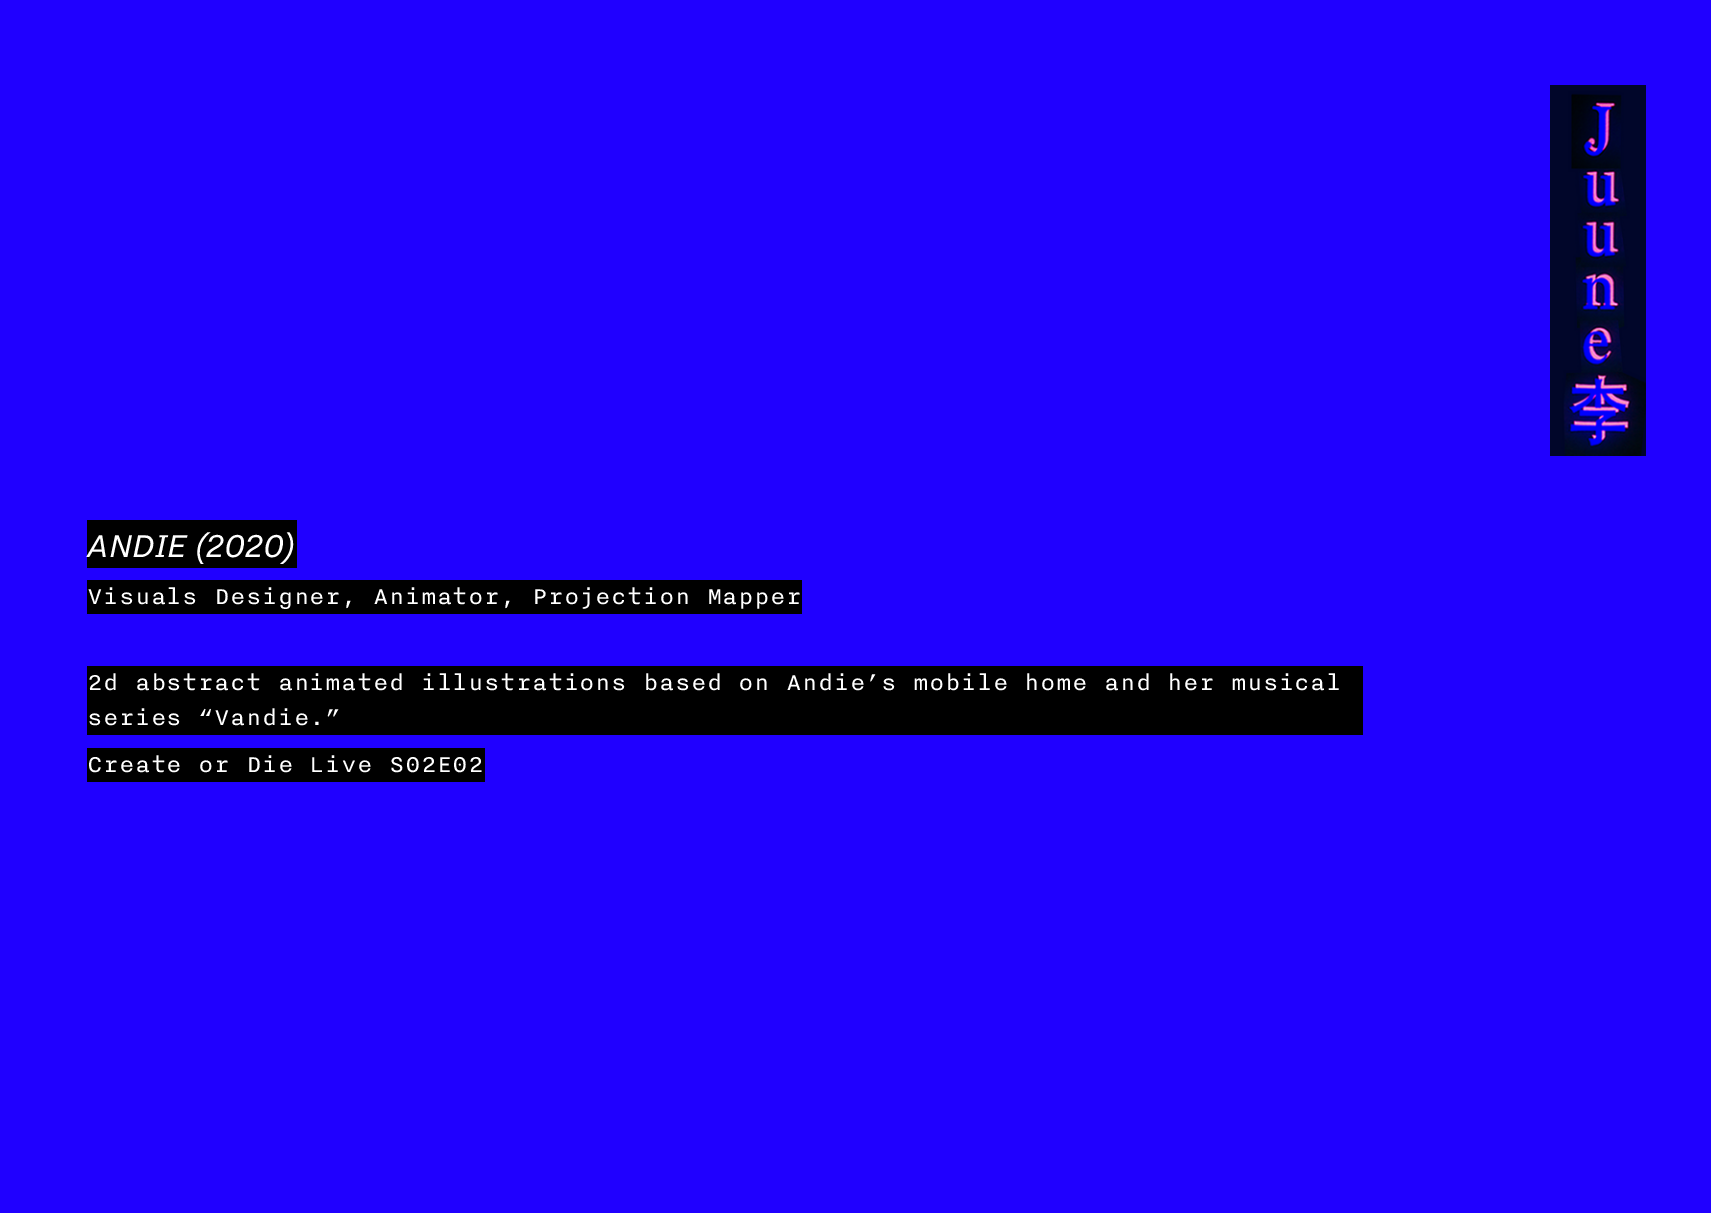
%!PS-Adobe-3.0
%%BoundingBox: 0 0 1711 1213
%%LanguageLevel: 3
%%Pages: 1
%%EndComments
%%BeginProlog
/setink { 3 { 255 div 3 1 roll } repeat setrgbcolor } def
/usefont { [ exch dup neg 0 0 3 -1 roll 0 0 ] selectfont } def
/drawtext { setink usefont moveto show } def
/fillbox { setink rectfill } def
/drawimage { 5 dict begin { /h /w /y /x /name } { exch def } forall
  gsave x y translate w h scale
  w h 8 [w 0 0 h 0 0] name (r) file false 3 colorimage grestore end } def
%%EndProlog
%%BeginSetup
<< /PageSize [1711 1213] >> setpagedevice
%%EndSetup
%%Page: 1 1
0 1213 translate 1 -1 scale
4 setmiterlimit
0 0 1711 1213 32 0 255 fillbox
(assets/img1.rgb) 1550 85 96 371 drawimage
87 520 210 48 0 0 0 fillbox
(ANDIE \(2020\)) 87 557 /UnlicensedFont-Italic 40 255 255 255 drawtext
87 580 715 34 0 0 0 fillbox
/UnlicensedFont-Regular 26.2 usefont
255 255 255 setink
87 604 moveto 0.17 0 (Visuals Designer, Animator, Projection Mapper) ashow
87 666 1276 69 0 0 0 fillbox
255 255 255 setink
87 690 moveto 0.17 0 (2d abstract animated illustrations based on Andie’s mobile home and her musical) ashow
87 725 moveto 0.17 0 (series “Vandie.”) ashow
87 748 398 34 0 0 0 fillbox
255 255 255 setink
87 772 moveto 0.17 0 (Create or Die Live S02E02) ashow
showpage
%%EOF
